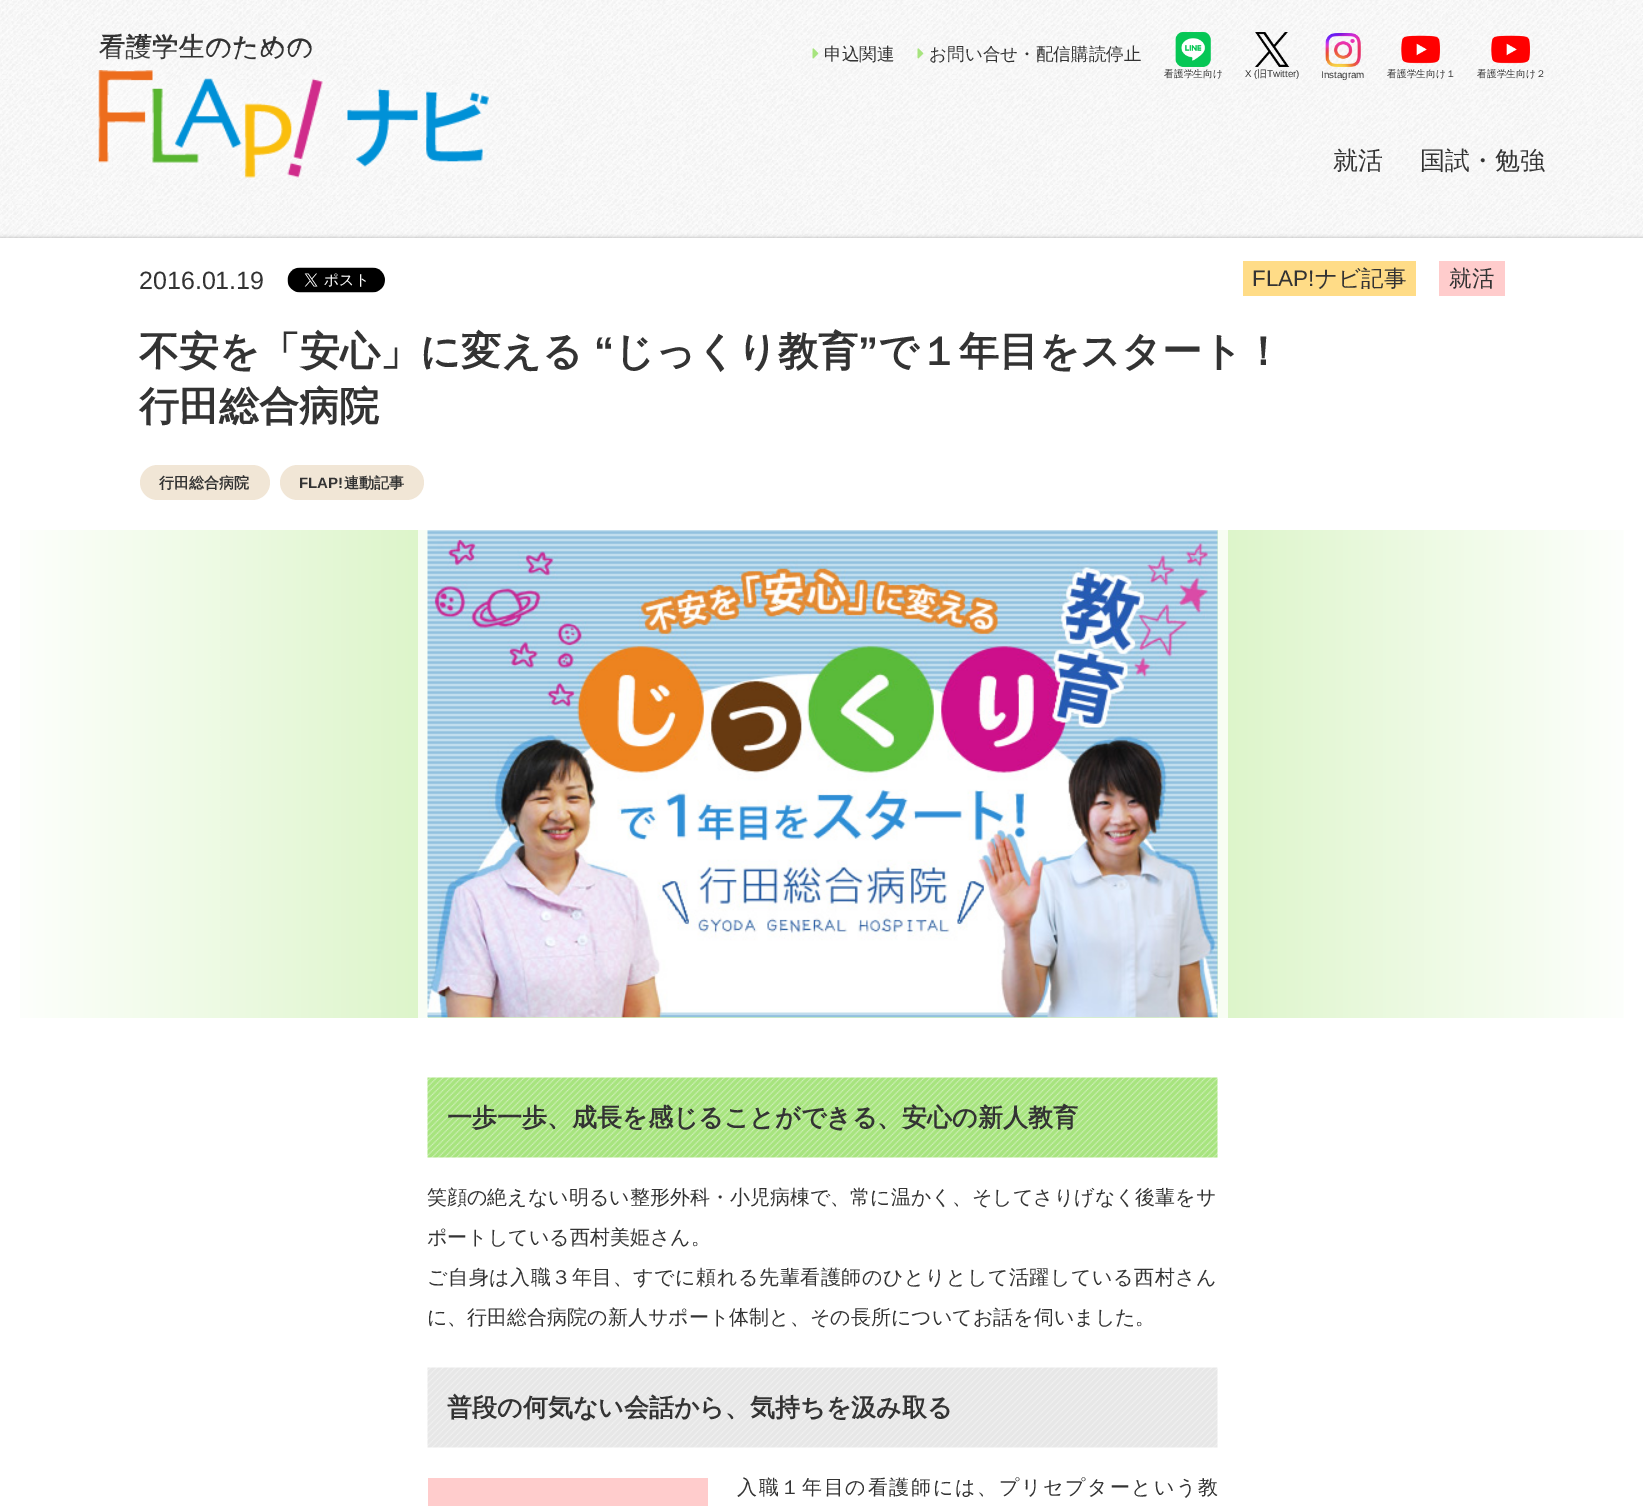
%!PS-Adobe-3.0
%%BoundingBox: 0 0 1643 1506
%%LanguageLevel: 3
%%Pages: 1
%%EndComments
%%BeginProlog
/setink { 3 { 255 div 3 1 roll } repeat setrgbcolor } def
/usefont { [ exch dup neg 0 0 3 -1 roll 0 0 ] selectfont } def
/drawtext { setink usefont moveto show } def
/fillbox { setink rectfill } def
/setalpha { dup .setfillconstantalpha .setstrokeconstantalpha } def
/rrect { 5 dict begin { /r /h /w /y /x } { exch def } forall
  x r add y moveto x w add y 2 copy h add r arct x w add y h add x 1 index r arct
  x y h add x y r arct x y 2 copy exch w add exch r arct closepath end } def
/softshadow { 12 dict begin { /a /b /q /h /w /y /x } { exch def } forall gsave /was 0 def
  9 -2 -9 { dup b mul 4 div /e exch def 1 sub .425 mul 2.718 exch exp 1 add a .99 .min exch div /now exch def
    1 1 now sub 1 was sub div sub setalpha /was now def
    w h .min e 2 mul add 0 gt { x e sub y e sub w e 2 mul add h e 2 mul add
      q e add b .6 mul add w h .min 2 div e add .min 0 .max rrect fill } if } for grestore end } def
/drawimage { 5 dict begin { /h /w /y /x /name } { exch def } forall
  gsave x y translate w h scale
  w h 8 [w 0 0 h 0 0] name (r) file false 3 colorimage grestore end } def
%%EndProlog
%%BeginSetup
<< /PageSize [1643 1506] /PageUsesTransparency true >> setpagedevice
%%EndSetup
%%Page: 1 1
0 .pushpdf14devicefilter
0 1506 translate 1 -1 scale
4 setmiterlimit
0 0 1643 1506 255 255 255 fillbox
(assets/img1.rgb) 0 0 1643 238 drawimage
/WenQuanYiZenHei-Bold 26 usefont
51 51 51 setink
99 56 moveto 0.5 0 (看護学生のための) ashow
(assets/img2.rgb) 97 48 392 130 drawimage
(assets/img3.rgb) 812 48 7 11 drawimage
(申込関連) 824 60 /WenQuanYiZenHei-Medium 17.6 51 51 51 drawtext
(assets/img4.rgb) 917 48 7 11 drawimage
(お問い合せ・配信購読停止) 929 60 /WenQuanYiZenHei-Medium 17.6 51 51 51 drawtext
(assets/img5.rgb) 1175 32 36 35 drawimage
(看護学生向け) 1164 77 /WenQuanYiZenHei-Medium 9.75 51 51 51 drawtext
(assets/img6.rgb) 1255 32 35 35 drawimage
(X \() 1245 77 /LiberationSans-Regular 9.75 51 51 51 drawtext
(旧) 1257 77 /WenQuanYiZenHei-Medium 9.75 51 51 51 drawtext
(Twitter\)) 1267 77 /LiberationSans-Regular 9.75 51 51 51 drawtext
(assets/img7.rgb) 1325 33 36 34 drawimage
(Instagram) 1321 78 /LiberationSans-Regular 9.75 51 51 51 drawtext
(assets/img8.rgb) 1401 35 39 29 drawimage
(看護学生向け１) 1387 77 /WenQuanYiZenHei-Medium 9.75 51 51 51 drawtext
(assets/img9.rgb) 1491 35 39 29 drawimage
(看護学生向け２) 1477 77 /WenQuanYiZenHei-Medium 9.75 51 51 51 drawtext
(就活) 1333 169 /WenQuanYiZenHei-Medium 25 51 51 51 drawtext
(国試・勉強) 1420 169 /WenQuanYiZenHei-Medium 25 51 51 51 drawtext
0 0 0 setink
0 238 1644 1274 0 2 0.3 softshadow
0 238 1643 1268 255 255 255 fillbox
(2016.01.19) 139 289 /LiberationSans-Regular 25 51 51 51 drawtext
(assets/img10.rgb) 287 267 98 26 drawimage
1243 261 173 35 255 220 135 fillbox
(FLAP!) 1252 286 /LiberationSans-Regular 22.5 51 51 51 drawtext
(ナビ記事) 1315 286 /WenQuanYiZenHei-Medium 22.5 51 51 51 drawtext
1439 261 66 35 255 204 204 fillbox
(就活) 1449 286 /WenQuanYiZenHei-Medium 22.5 51 51 51 drawtext
(不安を「安心」に変える) 139 365 /WenQuanYiZenHei-Bold 40 51 51 51 drawtext
(“) 594 365 /LiberationSans-Bold 40 51 51 51 drawtext
(じっくり教育) 614 365 /WenQuanYiZenHei-Bold 40 51 51 51 drawtext
(”) 858 365 /LiberationSans-Bold 40 51 51 51 drawtext
(で１年目をスタート！) 878 365 /WenQuanYiZenHei-Bold 40 51 51 51 drawtext
(行田総合病院) 139 420 /WenQuanYiZenHei-Bold 40 51 51 51 drawtext
241 230 214 setink
140 465 130 35 17.5 rrect fill
(行田総合病院) 159 488 /WenQuanYiZenHei-Bold 15 51 51 51 drawtext
241 230 214 setink
280 465 144 35 17.5 rrect fill
(FLAP!) 299 488 /LiberationSans-Bold 15 51 51 51 drawtext
(連動記事) 344 488 /WenQuanYiZenHei-Bold 15 51 51 51 drawtext
gsave 20 530 moveto 1624 530 lineto 1624 1018 lineto 20 1018 lineto closepath clip newpath
<< /ShadingType 2 /ColorSpace /DeviceRGB /Coords [0 774 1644 774] /Extend [true true] /Function << /FunctionType 3 /Domain [0 1] /Functions [<< /FunctionType 2 /Domain [0 1] /C0 [1 1 1] /C1 [0.843 0.953 0.757] /N 1 >> << /FunctionType 2 /Domain [0 1] /C0 [0.843 0.953 0.757] /C1 [0.843 0.953 0.757] /N 1 >> << /FunctionType 2 /Domain [0 1] /C0 [0.843 0.953 0.757] /C1 [1 1 1] /N 1 >>] /Bounds [0.3 0.7] /Encode [0 1 0 1 0 1] >> >> shfill grestore
1218 530 10 488 248 253 244 fillbox
418 530 10 488 248 253 244 fillbox
(assets/img11.rgb) 427 530 791 488 drawimage
(assets/img12.rgb) 427 1077 791 81 drawimage
(一歩一歩、成長を感じることができる、安心の新人教育) 447 1126 /WenQuanYiZenHei-Bold 25 51 51 51 drawtext
(笑顔の絶えない明るい整形外科・小児病棟で、常に温かく、そしてさりげなく後輩をサ) 427 1204 /WenQuanYiZenHei-Medium 20 51 51 51 drawtext
(ポートしている西村美姫さん。) 427 1244 /WenQuanYiZenHei-Medium 20 51 51 51 drawtext
427 1284 moveto 0.55 0 (ご自身は入職３年目、すでに頼れる先輩看護師のひとりとして活躍している西村さん) ashow
(に、行田総合病院の新人サポート体制と、その長所についてお話を伺いました。) 427 1324 /WenQuanYiZenHei-Medium 20 51 51 51 drawtext
(assets/img13.rgb) 427 1367 791 81 drawimage
(普段の何気ない会話から、気持ちを汲み取る) 447 1416 /WenQuanYiZenHei-Bold 25 51 51 51 drawtext
428 1478 280 28 255 204 204 fillbox
/WenQuanYiZenHei-Medium 20 usefont
51 51 51 setink
737 1494 moveto 1.7 0 (入職１年目の看護師には、プリセプターという教) ashow
.poppdf14devicefilter showpage
%%EOF
